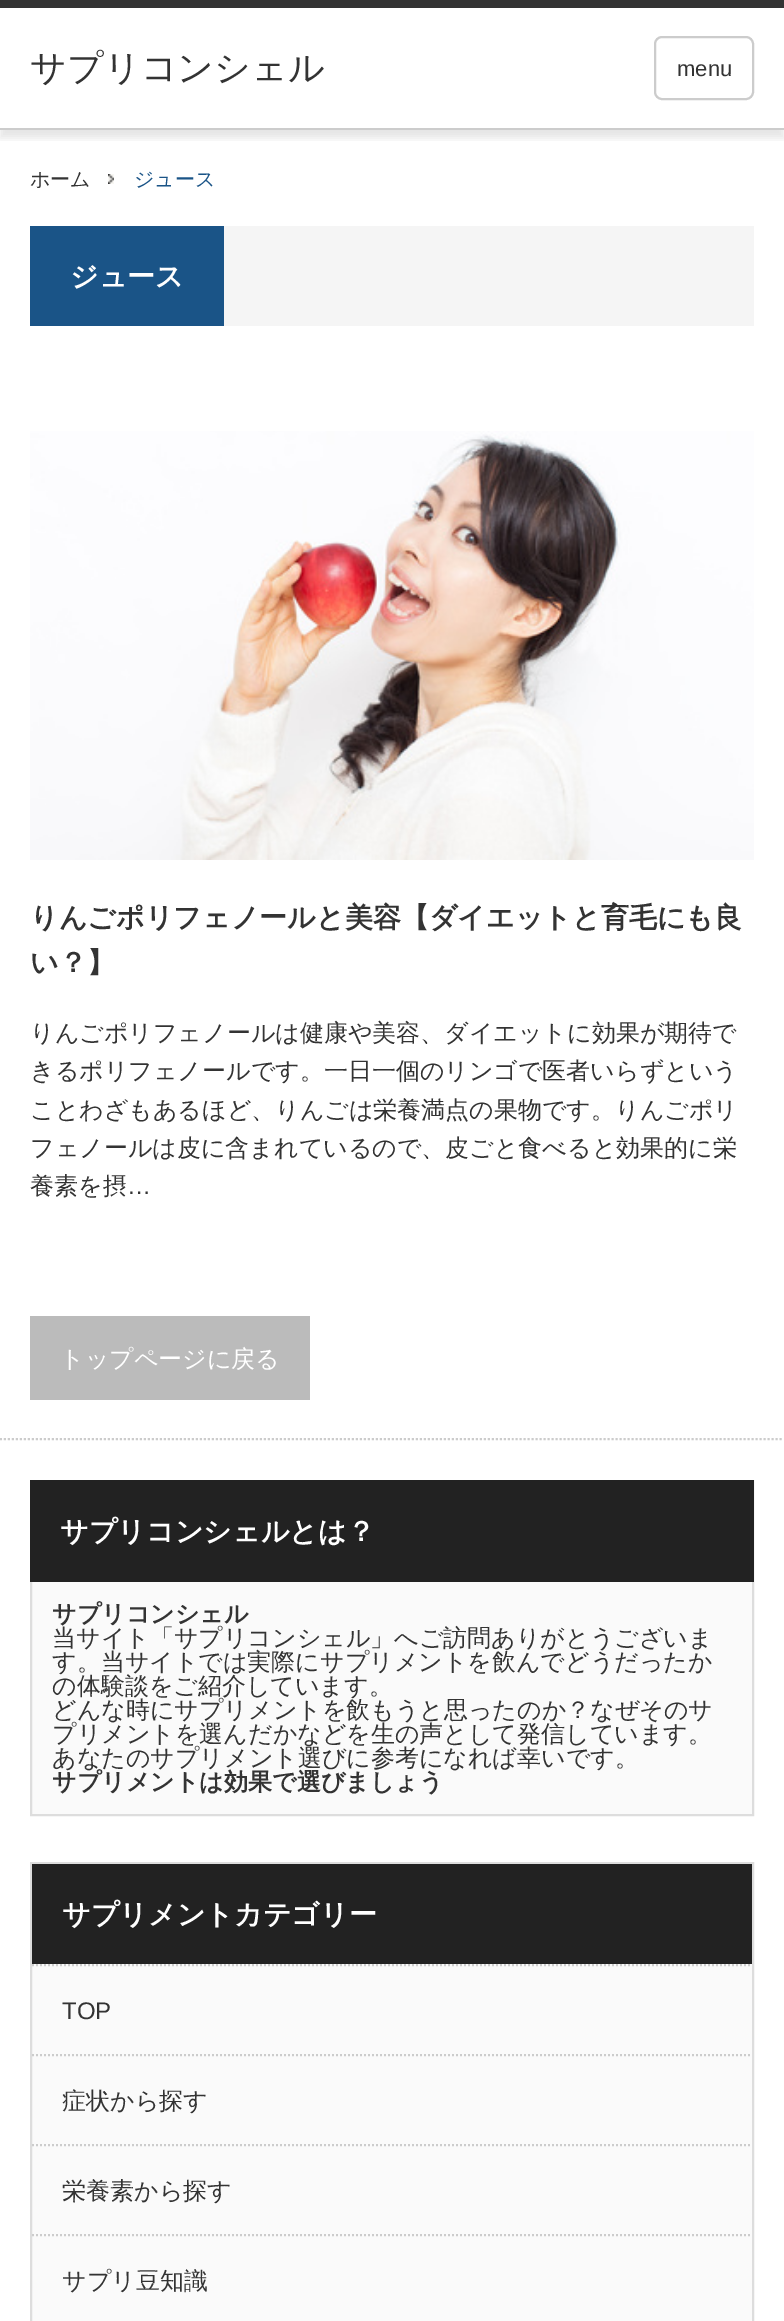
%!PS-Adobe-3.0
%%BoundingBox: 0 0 784 2321
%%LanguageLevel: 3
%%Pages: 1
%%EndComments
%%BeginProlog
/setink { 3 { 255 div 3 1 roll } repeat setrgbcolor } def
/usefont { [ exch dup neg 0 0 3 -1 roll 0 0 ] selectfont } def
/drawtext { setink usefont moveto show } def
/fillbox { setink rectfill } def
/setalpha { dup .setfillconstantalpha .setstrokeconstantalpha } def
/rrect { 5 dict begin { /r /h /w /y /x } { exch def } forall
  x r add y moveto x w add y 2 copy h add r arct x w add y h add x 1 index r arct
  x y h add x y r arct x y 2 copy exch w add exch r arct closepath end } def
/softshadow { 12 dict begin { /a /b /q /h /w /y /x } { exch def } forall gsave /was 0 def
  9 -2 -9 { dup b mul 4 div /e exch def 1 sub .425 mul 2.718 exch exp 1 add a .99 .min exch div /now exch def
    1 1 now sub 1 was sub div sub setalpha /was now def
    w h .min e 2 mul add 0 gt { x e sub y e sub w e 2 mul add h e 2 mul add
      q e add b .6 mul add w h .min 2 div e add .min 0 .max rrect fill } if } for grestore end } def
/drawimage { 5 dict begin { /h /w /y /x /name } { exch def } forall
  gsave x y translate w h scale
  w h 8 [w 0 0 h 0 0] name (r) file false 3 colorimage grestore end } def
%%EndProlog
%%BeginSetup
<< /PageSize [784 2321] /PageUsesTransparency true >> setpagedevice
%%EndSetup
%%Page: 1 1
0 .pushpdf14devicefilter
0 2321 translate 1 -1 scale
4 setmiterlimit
0 0 784 2321 255 255 255 fillbox
gsave
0 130 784 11 rectclip
0 0 0 setink
0 8 784 130 0 4 0.1 softshadow
grestore
0 0 784 8 51 51 51 fillbox
0 128 784 2 204 204 204 fillbox
(サプリコンシェル) 30 80 /WenQuanYiZenHei-Medium 36 51 51 51 drawtext
204 204 204 setink
2 setlinewidth
655 37 98 62 7 rrect stroke
(menu) 677 76 /LiberationSans-Regular 22 51 51 51 drawtext
(ホーム) 30 186 /WenQuanYiZenHei-Medium 20 51 51 51 drawtext
(assets/img1.rgb) 108 174 6 10 drawimage
(ジュース) 134 186 /WenQuanYiZenHei-Medium 20 26 84 135 drawtext
224 226 530 100 245 245 245 fillbox
30 226 194 100 26 84 135 fillbox
(ジュース) 70 286 /WenQuanYiZenHei-Bold 28 255 255 255 drawtext
(assets/img2.rgb) 30 431 724 429 drawimage
(りんごポリフェノールと美容【ダイエットと育毛にも良) 30 927 /WenQuanYiZenHei-Bold 28 51 51 51 drawtext
(い？】) 30 972 /WenQuanYiZenHei-Bold 28 51 51 51 drawtext
(りんごポリフェノールは健康や美容、ダイエットに効果が期待で) 30 1041 /WenQuanYiZenHei-Medium 24 51 51 51 drawtext
(きるポリフェノールです。一日一個のリンゴで医者いらずという) 30 1079 /WenQuanYiZenHei-Medium 24 51 51 51 drawtext
(ことわざもあるほど、りんごは栄養満点の果物です。りんごポリ) 30 1118 /WenQuanYiZenHei-Medium 24 51 51 51 drawtext
(フェノールは皮に含まれているので、皮ごと食べると効果的に栄) 30 1156 /WenQuanYiZenHei-Medium 24 51 51 51 drawtext
(養素を摂) 30 1194 /WenQuanYiZenHei-Medium 24 51 51 51 drawtext
(…) 127 1194 /LiberationSans-Regular 24 51 51 51 drawtext
30 1316 280 84 187 187 187 fillbox
(トップページに戻る) 60 1367 /WenQuanYiZenHei-Medium 24 255 255 255 drawtext
204 204 204 setink
[2 2] 0 setdash
0 1439 moveto 784 1439 lineto stroke
32 1582 720 232 250 250 250 fillbox
221 221 221 setink
[] 0 setdash
31 1481 722 334 rectstroke
30 1480 724 102 34 34 34 fillbox
(サプリコンシェルとは？) 60 1541 /WenQuanYiZenHei-Bold 28 255 255 255 drawtext
(サプリコンシェル) 52 1622 /WenQuanYiZenHei-Bold 24 51 51 51 drawtext
(当サイト「サプリコンシェル」へご訪問ありがとうございま) 52 1646 /WenQuanYiZenHei-Medium 24 51 51 51 drawtext
(す。当サイトでは実際にサプリメントを飲んでどうだったか) 52 1670 /WenQuanYiZenHei-Medium 24 51 51 51 drawtext
(の体験談をご紹介しています。) 52 1694 /WenQuanYiZenHei-Medium 24 51 51 51 drawtext
(どんな時にサプリメントを飲もうと思ったのか？なぜそのサ) 52 1718 /WenQuanYiZenHei-Medium 24 51 51 51 drawtext
(プリメントを選んだかなどを生の声として発信しています。) 52 1742 /WenQuanYiZenHei-Medium 24 51 51 51 drawtext
(あなたのサプリメント選びに参考になれば幸いです。) 52 1766 /WenQuanYiZenHei-Medium 24 51 51 51 drawtext
(サプリメントは効果で選びましょう) 52 1790 /WenQuanYiZenHei-Bold 24 51 51 51 drawtext
32 1964 720 357 250 250 250 fillbox
221 221 221 setink
31 1863 722 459 rectstroke
32 1864 720 100 34 34 34 fillbox
(サプリメントカテゴリー) 62 1924 /WenQuanYiZenHei-Bold 28 255 255 255 drawtext
204 204 204 setink
[2 2] 0 setdash
32 1965 moveto 752 1965 lineto stroke
(TOP) 62 2019 /LiberationSans-Regular 24 51 51 51 drawtext
204 204 204 setink
32 2055 moveto 752 2055 lineto stroke
(症状から探す) 62 2109 /WenQuanYiZenHei-Medium 24 51 51 51 drawtext
204 204 204 setink
32 2145 moveto 752 2145 lineto stroke
(栄養素から探す) 62 2199 /WenQuanYiZenHei-Medium 24 51 51 51 drawtext
204 204 204 setink
32 2235 moveto 752 2235 lineto stroke
(サプリ豆知識) 62 2289 /WenQuanYiZenHei-Medium 24 51 51 51 drawtext
.poppdf14devicefilter showpage
%%EOF
